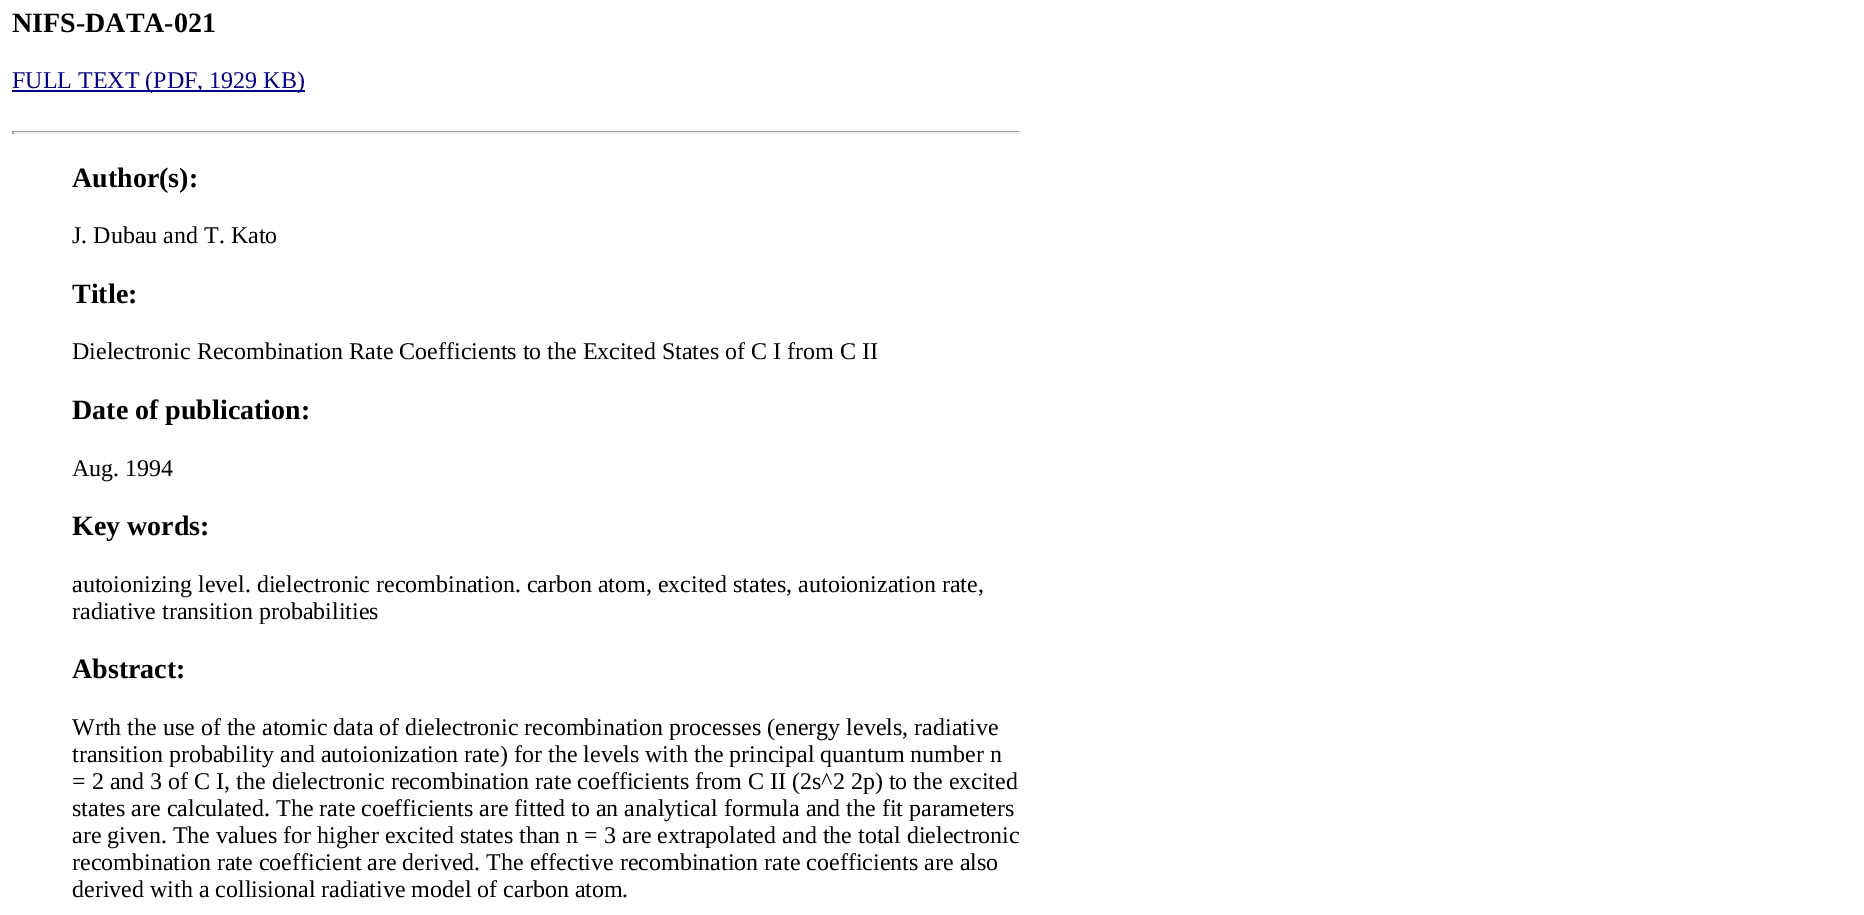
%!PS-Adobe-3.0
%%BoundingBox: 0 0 1864 915
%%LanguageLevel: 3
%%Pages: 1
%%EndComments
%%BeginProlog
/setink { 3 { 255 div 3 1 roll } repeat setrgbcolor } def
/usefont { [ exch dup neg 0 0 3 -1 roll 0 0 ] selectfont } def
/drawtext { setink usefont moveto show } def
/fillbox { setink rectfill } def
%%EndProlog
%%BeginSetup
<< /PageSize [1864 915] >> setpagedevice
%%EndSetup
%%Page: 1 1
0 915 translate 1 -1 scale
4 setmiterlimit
0 0 1864 915 255 255 255 fillbox
(NIFS-DATA-021) 12 32 /LiberationSerif-Bold 28 0 0 0 drawtext
12 90 293 2 0 0 128 fillbox
(FULL TEXT \(PDF, 1929 KB\)) 12 88 /LiberationSerif-Regular 24 0 0 128 drawtext
12 131 1008 1 159 159 159 fillbox
1019 131 2 3 238 238 238 fillbox
12 132 1008 2 238 238 238 fillbox
12 131 2 3 159 159 159 fillbox
(Author\(s\):) 72 187 /LiberationSerif-Bold 28 0 0 0 drawtext
(J. Dubau and T. Kato) 72 243 /LiberationSerif-Regular 24 0 0 0 drawtext
(Title:) 72 303 /LiberationSerif-Bold 28 0 0 0 drawtext
(Dielectronic Recombination Rate Coefficients to the Excited States of C I from C II) 72 359 /LiberationSerif-Regular 24 0 0 0 drawtext
(Date of publication:) 72 419 /LiberationSerif-Bold 28 0 0 0 drawtext
(Aug. 1994) 72 476 /LiberationSerif-Regular 24 0 0 0 drawtext
(Key words:) 72 535 /LiberationSerif-Bold 28 0 0 0 drawtext
(autoionizing level. dielectronic recombination. carbon atom, excited states, autoionization rate,) 72 592 /LiberationSerif-Regular 24 0 0 0 drawtext
(radiative transition probabilities) 72 619 /LiberationSerif-Regular 24 0 0 0 drawtext
(Abstract:) 72 678 /LiberationSerif-Bold 28 0 0 0 drawtext
(Wrth the use of the atomic data of dielectronic recombination processes \(energy levels, radiative) 72 735 /LiberationSerif-Regular 24 0 0 0 drawtext
(transition probability and autoionization rate\) for the levels with the principal quantum number n) 72 762 /LiberationSerif-Regular 24 0 0 0 drawtext
(= 2 and 3 of C I, the dielectronic recombination rate coefficients from C II \(2s^2 2p\) to the excited) 72 789 /LiberationSerif-Regular 24 0 0 0 drawtext
(states are calculated. The rate coefficients are fitted to an analytical formula and the fit parameters) 72 816 /LiberationSerif-Regular 24 0 0 0 drawtext
(are given. The values for higher excited states than n = 3 are extrapolated and the total dielectronic) 72 843 /LiberationSerif-Regular 24 0 0 0 drawtext
(recombination rate coefficient are derived. The effective recombination rate coefficients are also) 72 870 /LiberationSerif-Regular 24 0 0 0 drawtext
(derived with a collisional radiative model of carbon atom.) 72 897 /LiberationSerif-Regular 24 0 0 0 drawtext
showpage
%%EOF
